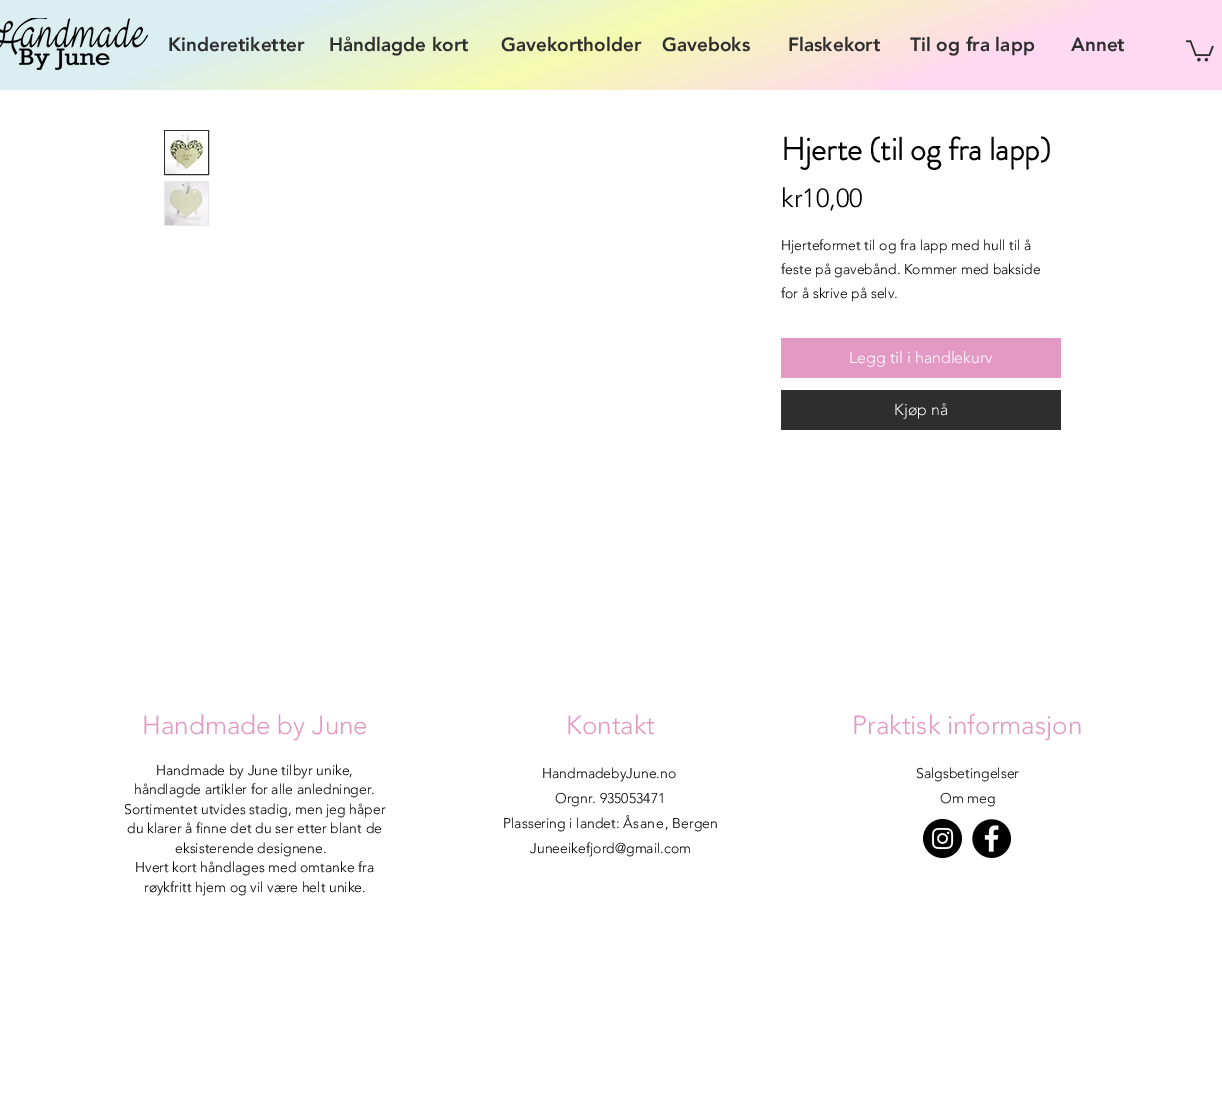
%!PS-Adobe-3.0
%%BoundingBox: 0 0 1222 1118
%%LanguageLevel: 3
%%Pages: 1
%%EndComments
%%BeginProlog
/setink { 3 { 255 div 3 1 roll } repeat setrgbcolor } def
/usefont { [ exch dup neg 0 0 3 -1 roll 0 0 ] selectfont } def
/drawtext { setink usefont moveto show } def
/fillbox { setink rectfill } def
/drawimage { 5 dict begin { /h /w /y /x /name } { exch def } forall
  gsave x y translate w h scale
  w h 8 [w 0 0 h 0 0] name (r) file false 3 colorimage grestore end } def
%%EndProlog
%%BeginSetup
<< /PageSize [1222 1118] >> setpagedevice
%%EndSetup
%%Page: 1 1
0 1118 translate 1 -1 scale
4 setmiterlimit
0 0 1222 1118 255 255 255 fillbox
gsave 0 0 moveto 1222 0 lineto 1222 90 lineto 0 90 lineto closepath clip newpath
<< /ShadingType 2 /ColorSpace /DeviceRGB /Coords [697 281 525 -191] /Extend [true true] /Function << /FunctionType 3 /Domain [0 1] /Functions [<< /FunctionType 2 /Domain [0 1] /C0 [1 0.847 0.945] /C1 [1 0.847 0.945] /N 1 >> << /FunctionType 2 /Domain [0 1] /C0 [1 0.847 0.945] /C1 [0.961 0.984 0.69] /N 1 >> << /FunctionType 2 /Domain [0 1] /C0 [0.961 0.984 0.69] /C1 [0.859 0.933 0.945] /N 1 >> << /FunctionType 2 /Domain [0 1] /C0 [0.859 0.933 0.945] /C1 [0.859 0.933 0.945] /N 1 >>] /Bounds [0.22 0.51 0.77] /Encode [0 1 0 1 0 1 0 1] >> >> shfill grestore
(assets/img1.rgb) 0 18 148 52 drawimage
(Kinderetiketter) 168 51 /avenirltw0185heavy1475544-Black 19 46 46 46 drawtext
(Håndlagde kort) 329 51 /avenirltw0185heavy1475544-Black 19 46 46 46 drawtext
(Gavekortholder) 501 51 /avenirltw0185heavy1475544-Black 19 46 46 46 drawtext
(Gaveboks) 662 51 /avenirltw0185heavy1475544-Black 19 46 46 46 drawtext
(Flaskekort) 788 51 /avenirltw0185heavy1475544-Black 19 46 46 46 drawtext
(Til og fra lapp) 910 51 /avenirltw0185heavy1475544-Black 19 46 46 46 drawtext
(Annet) 1071 51 /avenirltw0185heavy1475544-Black 19 46 46 46 drawtext
(assets/img2.rgb) 1186 40 28 22 drawimage
164.5 130.5 44 44 rectstroke
(assets/img3.rgb) 165 131 43 43 drawimage
164 181 45 45 232 230 230 fillbox
(assets/img4.rgb) 165 182 43 43 drawimage
(Hjerte \(til og fra lapp\)) 781 160 /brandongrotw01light-Bold 32 0 0 0 drawtext
(kr10,00) 781 207 /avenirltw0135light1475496-Light 26 0 0 0 drawtext
(Hjerteformet til og fra lapp med hull til å) 781 250 /avenirltw0135light1475496-Light 14 0 0 0 drawtext
(feste på gavebånd. Kommer med bakside) 781 274 /avenirltw0135light1475496-Light 14 0 0 0 drawtext
(for å skrive på selv.) 781 298 /avenirltw0135light1475496-Light 14 0 0 0 drawtext
781 338 280 40 228 153 196 fillbox
(Legg til i handlekurv) 849 363 /avenirltw0135light1475496-Light 16 255 255 255 drawtext
781 390 280 40 46 46 46 fillbox
(Kjøp nå) 894 415 /avenirltw0135light1475496-Light 16 255 255 255 drawtext
(Handmade by June) 142 734 /avenirltw0135light1475496-Light 26 228 153 196 drawtext
(Kontakt) 566 734 /avenirltw0135light1475496-Light 26 228 153 196 drawtext
(Praktisk informasjon) 852 734 /avenirltw0135light1475496-Light 26 228 153 196 drawtext
(Handmade by June tilbyr unike,) 156 775 /avenirltw0135light1475496-Light 14 0 0 0 drawtext
(håndlagde artikler for alle anledninger.) 134 794 /avenirltw0135light1475496-Light 14 0 0 0 drawtext
(Sortimentet utvides stadig, men jeg håper) 124 814 /avenirltw0135light1475496-Light 14 0 0 0 drawtext
(du klarer å finne det du ser etter blant de) 127 833 /avenirltw0135light1475496-Light 14 0 0 0 drawtext
(eksisterende designene.) 175 853 /avenirltw0135light1475496-Light 14 0 0 0 drawtext
(Hvert kort håndlages med omtanke fra) 135 872 /avenirltw0135light1475496-Light 14 0 0 0 drawtext
(røykfritt hjem og vil være helt unike.) 144 892 /avenirltw0135light1475496-Light 14 0 0 0 drawtext
(HandmadebyJune.no) 542 778 /avenirltw0135light1475496-Light 14 0 0 0 drawtext
(Orgnr. 935053471) 555 803 /avenirltw0135light1475496-Light 14 0 0 0 drawtext
(Plassering i landet:) 503 828 /avenirltw0135light1475496-Light 14 0 0 0 drawtext
623 828 moveto 0.5 0 (Åsane) ashow
(, Bergen) 665 828 /avenirltw0135light1475496-Light 14 0 0 0 drawtext
(Juneeikefjord@gmail.com) 530 853 /avenirltw0135light1475496-Light 14 0 0 0 drawtext
(Salgsbetingelser) 916 778 /avenirltw0135light1475496-Light 14 0 0 0 drawtext
(Om meg) 940 803 /avenirltw0135light1475496-Light 14 0 0 0 drawtext
(assets/img5.rgb) 923 819 39 39 drawimage
(assets/img6.rgb) 972 819 39 39 drawimage
showpage
%%EOF
